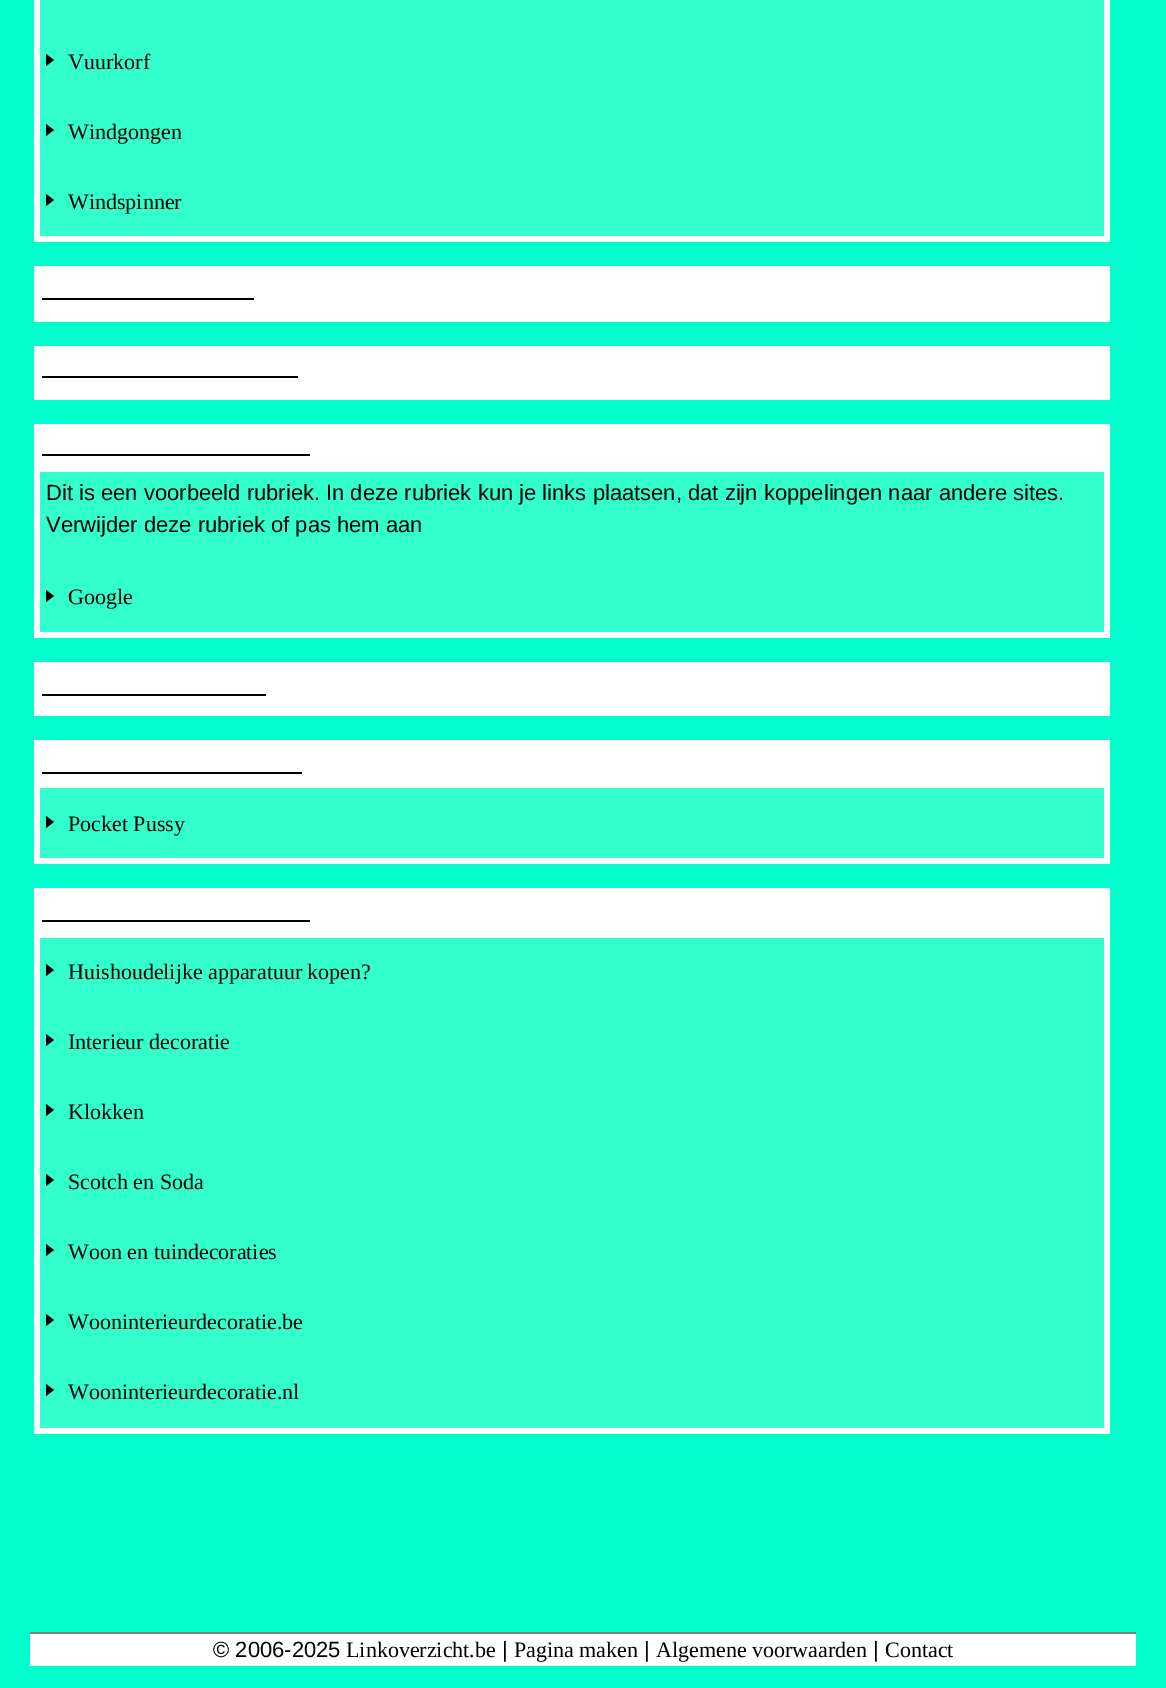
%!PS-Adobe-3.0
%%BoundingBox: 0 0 1166 1688
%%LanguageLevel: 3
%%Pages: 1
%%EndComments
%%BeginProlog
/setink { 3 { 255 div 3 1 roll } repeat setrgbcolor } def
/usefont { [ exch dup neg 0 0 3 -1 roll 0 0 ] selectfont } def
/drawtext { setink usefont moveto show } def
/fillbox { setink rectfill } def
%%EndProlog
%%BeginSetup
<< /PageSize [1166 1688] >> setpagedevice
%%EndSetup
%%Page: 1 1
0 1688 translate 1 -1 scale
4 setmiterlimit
0 0 1166 1688 0 255 204 fillbox
34 0 1076 242 255 255 255 fillbox
40 0 1064 236 51 255 204 fillbox
0 0 0 setink
46 66 moveto 46 54 lineto 54 60 lineto closepath fill
(Vuurkorf) 68 69 /LiberationSerif-Regular 22 0 0 0 drawtext
46 136 moveto 46 124 lineto 54 130 lineto closepath fill
(Windgongen) 68 139 /LiberationSerif-Regular 22 0 0 0 drawtext
46 206 moveto 46 194 lineto 54 200 lineto closepath fill
(Windspinner) 68 209 /LiberationSerif-Regular 22 0 0 0 drawtext
34 266 1076 56 255 255 255 fillbox
42 298 212 2 0 0 0 fillbox
34 346 1076 54 255 255 255 fillbox
42 376 256 2 0 0 0 fillbox
34 424 1076 214 255 255 255 fillbox
42 454 268 2 0 0 0 fillbox
40 472 1064 160 51 255 204 fillbox
(Dit is een voorbeeld rubriek. In deze rubriek kun je links plaatsen, dat zijn koppelingen naar andere sites.) 46 500 /LiberationSans-Regular 22 0 0 0 drawtext
(Verwijder deze rubriek of pas hem aan) 46 532 /LiberationSans-Regular 22 0 0 0 drawtext
46 602 moveto 46 590 lineto 54 596 lineto closepath fill
(Google) 68 604 /LiberationSerif-Regular 22 0 0 0 drawtext
34 662 1076 54 255 255 255 fillbox
42 694 224 2 0 0 0 fillbox
34 740 1076 124 255 255 255 fillbox
42 772 260 2 0 0 0 fillbox
40 788 1064 70 51 255 204 fillbox
0 0 0 setink
46 828 moveto 46 816 lineto 54 822 lineto closepath fill
(Pocket Pussy) 68 831 /LiberationSerif-Regular 22 0 0 0 drawtext
34 888 1076 546 255 255 255 fillbox
42 920 268 2 0 0 0 fillbox
40 938 1064 490 51 255 204 fillbox
0 0 0 setink
46 976 moveto 46 964 lineto 54 970 lineto closepath fill
(Huishoudelijke apparatuur kopen?) 68 979 /LiberationSerif-Regular 22 0 0 0 drawtext
46 1046 moveto 46 1034 lineto 54 1040 lineto closepath fill
(Interieur decoratie) 68 1049 /LiberationSerif-Regular 22 0 0 0 drawtext
46 1116 moveto 46 1104 lineto 54 1110 lineto closepath fill
(Klokken) 68 1119 /LiberationSerif-Regular 22 0 0 0 drawtext
46 1186 moveto 46 1174 lineto 54 1180 lineto closepath fill
(Scotch en Soda) 68 1189 /LiberationSerif-Regular 22 0 0 0 drawtext
46 1256 moveto 46 1244 lineto 54 1250 lineto closepath fill
(Woon en tuindecoraties) 68 1259 /LiberationSerif-Regular 22 0 0 0 drawtext
46 1326 moveto 46 1314 lineto 54 1320 lineto closepath fill
(Wooninterieurdecoratie.be) 68 1329 /LiberationSerif-Regular 22 0 0 0 drawtext
46 1396 moveto 46 1384 lineto 54 1390 lineto closepath fill
(Wooninterieurdecoratie.nl) 68 1399 /LiberationSerif-Regular 22 0 0 0 drawtext
30 1634 1106 32 255 255 255 fillbox
30 1632 1106 2 128 128 128 fillbox
(© 2006-2025) 213 1657 /LiberationSans-Regular 22 0 0 0 drawtext
(Linkoverzicht.be) 346 1657 /LiberationSerif-Regular 22 0 0 0 drawtext
(|) 502 1657 /LiberationSans-Regular 22 0 0 0 drawtext
(Pagina maken) 514 1657 /LiberationSerif-Regular 22 0 0 0 drawtext
(|) 644 1657 /LiberationSans-Regular 22 0 0 0 drawtext
(Algemene voorwaarden) 656 1657 /LiberationSerif-Regular 22 0 0 0 drawtext
(|) 873 1657 /LiberationSans-Regular 22 0 0 0 drawtext
(Contact) 885 1657 /LiberationSerif-Regular 22 0 0 0 drawtext
showpage
%%EOF
